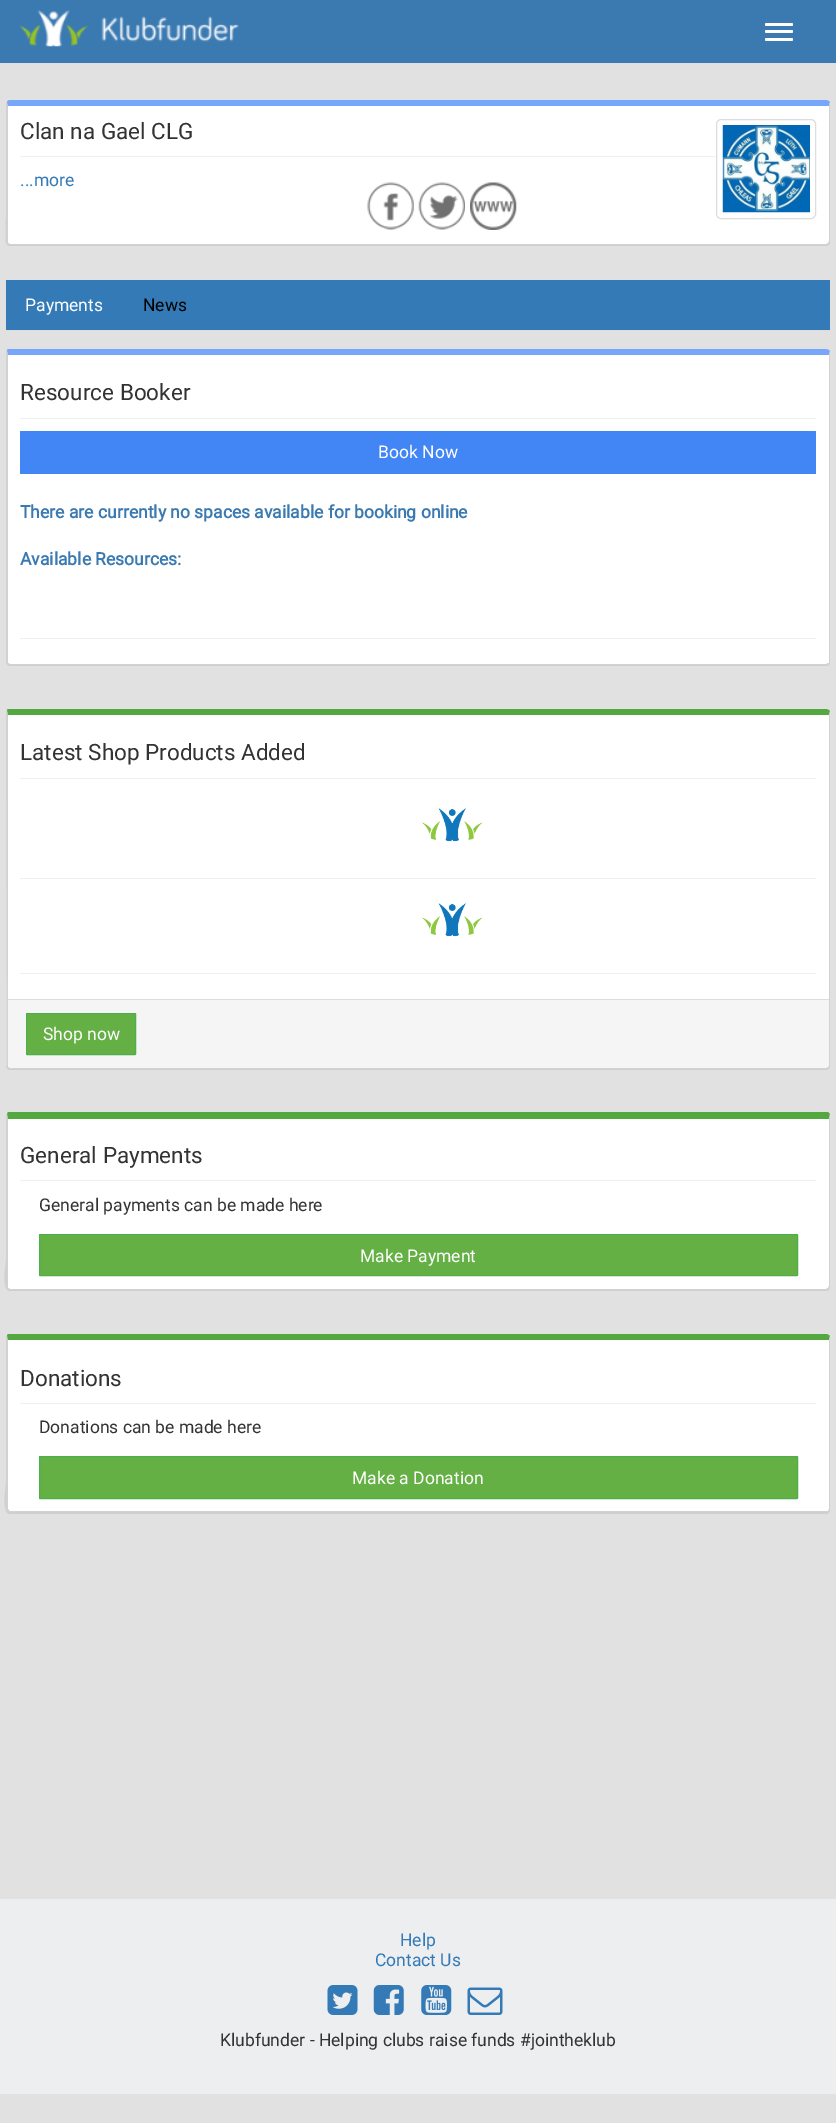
%!PS-Adobe-3.0
%%BoundingBox: 0 0 836 2123
%%LanguageLevel: 3
%%Pages: 1
%%EndComments
%%BeginProlog
/setink { 3 { 255 div 3 1 roll } repeat setrgbcolor } def
/usefont { [ exch dup neg 0 0 3 -1 roll 0 0 ] selectfont } def
/drawtext { setink usefont moveto show } def
/fillbox { setink rectfill } def
/rrect { 5 dict begin { /r /h /w /y /x } { exch def } forall
  x r add y moveto x w add y 2 copy h add r arct x w add y h add x 1 index r arct
  x y h add x y r arct x y 2 copy exch w add exch r arct closepath end } def
/drawimage { 5 dict begin { /h /w /y /x /name } { exch def } forall
  gsave x y translate w h scale
  w h 8 [w 0 0 h 0 0] name (r) file false 3 colorimage grestore end } def
%%EndProlog
%%BeginSetup
<< /PageSize [836 2123] >> setpagedevice
%%EndSetup
%%Page: 1 1
0 2123 translate 1 -1 scale
4 setmiterlimit
0 0 836 2123 225 225 225 fillbox
0 0 836 63 59 122 177 fillbox
(assets/img1.rgb) 19 10 220 37 drawimage
255 255 255 setink
765 23 28 3 1.5 rrect fill
765 30 28 3 1.5 rrect fill
765 38 28 3 1.5 rrect fill
207 207 207 setink
6 104 moveto 6 219 lineto 6 227 2 246 10 246 curveto 826 246 lineto 829 246 830 244 830 241 curveto 830 243 828 245 826 245 curveto 10 245 lineto 2 245 6 226 6 218 curveto closepath fill
255 255 255 setink
10 106 moveto 829 106 lineto 829 241 lineto 829 243 828 244 826 244 curveto 10 244 lineto 9 244 8 243 8 241 curveto 8 106 lineto closepath fill
118 167 250 setink
10 100 moveto 9 100 7 101 7 102 curveto 8 109 lineto 8 106 lineto 829 106 lineto 830 102 lineto 829 101 827 100 826 100 curveto closepath fill
210 210 210 setink
830 241 moveto 830 104 lineto 830 102 lineto 829 106 lineto 829 241 lineto 828 243 lineto 829 244 lineto closepath fill
10 245 moveto 826 245 lineto 829 244 lineto 828 243 lineto 826 244 lineto 10 244 lineto 8 243 lineto 7 244 lineto closepath fill
6 103 moveto 7 102 lineto 8 109 lineto 8 241 lineto 8 243 lineto 7 244 lineto 6 242 lineto closepath fill
20 156 696 1 239 239 239 fillbox
(Clan na Gael CLG) 20 139 /Roboto-Regular 22.5 51 51 51 drawtext
221 221 221 setink
716.5 119.5 99 99 4.5 rrect stroke
(assets/img2.rgb) 722 125 88 88 drawimage
(...more) 20 186 /Roboto-Regular 17.5 51 122 183 drawtext
(assets/img3.rgb) 367 182 47 48 drawimage
(assets/img4.rgb) 418 182 47 48 drawimage
(assets/img5.rgb) 470 182 47 48 drawimage
6 280 824 50 51 122 183 fillbox
6 330 824 1 221 221 221 fillbox
(Payments) 25 311 /Roboto-Regular 17.5 255 255 255 drawtext
(News) 143 311 /Roboto-Regular 17.5 0 0 0 drawtext
207 207 207 setink
6 353 moveto 6 662 lineto 6 664 8 666 10 666 curveto 826 666 lineto 828 666 830 664 830 662 curveto 830 661 lineto 830 663 828 665 826 665 curveto 10 665 lineto 8 665 6 663 6 661 curveto closepath fill
255 255 255 setink
10 355 moveto 829 355 lineto 829 661 lineto 829 663 828 664 826 664 curveto 10 664 lineto 9 664 8 663 8 661 curveto 8 355 lineto closepath fill
118 167 250 setink
10 349 moveto 9 349 7 349 7 350 curveto 8 358 lineto 8 355 lineto 829 355 lineto 830 351 lineto 829 350 827 349 826 349 curveto closepath fill
210 210 210 setink
830 661 moveto 830 352 lineto 830 351 lineto 829 355 lineto 829 559 lineto 829 663 lineto 828 663 lineto 829 664 lineto closepath fill
10 665 moveto 826 665 lineto 829 664 lineto 828 663 lineto 826 664 lineto 10 664 lineto 8 663 lineto 7 664 lineto closepath fill
6 351 moveto 7 350 lineto 8 358 lineto 8 661 lineto 8 663 lineto 7 664 lineto 6 662 lineto closepath fill
20 418 796 1 239 239 239 fillbox
(Resource Booker) 20 400 /Roboto-Regular 22.5 51 51 51 drawtext
66 133 244 setink
20 431 796 43 1 rrect fill
(Book Now) 378 458 /Roboto-Regular 17.5 255 255 255 drawtext
(There are currently no spaces available for booking online) 20 518 /Roboto-Bold 17.5 59 122 177 drawtext
(Available Resources:) 20 565 /Roboto-Bold 17.5 59 122 177 drawtext
20 638 796 1 239 239 239 fillbox
207 207 207 setink
6 713 moveto 6 1066 lineto 6 1068 8 1070 10 1070 curveto 826 1070 lineto 828 1070 830 1068 830 1066 curveto 830 1065 lineto 830 1067 828 1069 826 1069 curveto 10 1069 lineto 8 1069 6 1067 6 1065 curveto closepath fill
255 255 255 setink
10 715 moveto 829 715 lineto 829 1065 lineto 829 1066 828 1068 826 1068 curveto 10 1068 lineto 9 1068 8 1066 8 1065 curveto 8 715 lineto closepath fill
83 169 63 setink
10 709 moveto 9 709 7 709 7 710 curveto 8 718 lineto 8 715 lineto 829 715 lineto 830 711 lineto 829 710 827 709 826 709 curveto closepath fill
210 210 210 setink
830 1065 moveto 830 712 lineto 830 711 lineto 829 715 lineto 829 1065 lineto 828 1067 lineto 829 1068 lineto closepath fill
9 1069 moveto 7 1068 lineto 8 1067 lineto 10 1068 lineto 826 1068 lineto 828 1067 lineto 829 1068 lineto 827 1069 lineto closepath fill
6 711 moveto 7 710 lineto 8 718 lineto 8 1065 lineto 8 1067 lineto 7 1068 lineto 7 1067 lineto closepath fill
20 778 796 1 239 239 239 fillbox
(Latest Shop Products Added) 20 760 /Roboto-Regular 22.5 51 51 51 drawtext
(assets/img6.rgb) 421 808 62 34 drawimage
20 878 796 1 239 239 239 fillbox
(assets/img7.rgb) 421 903 62 34 drawimage
20 973 796 1 239 239 239 fillbox
245 245 245 setink
8 999 moveto 829 999 lineto 829 1064 lineto 829 1066 827 1068 825 1068 curveto 12 1068 lineto 10 1068 8 1066 8 1064 curveto closepath fill
8 999 821 1 221 221 221 fillbox
101 176 69 setink
26.5 1013.5 109 41 0.5 rrect gsave fill grestore
76 174 76 setink
stroke
(Shop now) 43 1040 /Roboto-Regular 17.5 255 255 255 drawtext
207 207 207 setink
6 1117 moveto 6 1259 lineto 6 1265 1 1291 10 1291 curveto 826 1291 lineto 829 1291 830 1289 830 1286 curveto 830 1288 828 1290 826 1290 curveto 10 1290 lineto 8 1290 6 1288 6 1286 curveto closepath fill
255 255 255 setink
10 1119 moveto 829 1119 lineto 829 1286 lineto 829 1288 828 1289 826 1289 curveto 10 1289 lineto 9 1289 8 1288 8 1286 curveto 8 1119 lineto closepath fill
83 169 63 setink
7 1114 moveto 8 1112 lineto 828 1112 lineto 830 1114 lineto 829 1119 lineto 8 1119 lineto 8 1121 lineto closepath fill
210 210 210 setink
830 1286 moveto 830 1116 lineto 830 1114 lineto 829 1119 lineto 829 1286 lineto 828 1288 lineto 829 1289 lineto closepath fill
10 1290 moveto 826 1290 lineto 829 1289 lineto 828 1288 lineto 826 1289 lineto 10 1289 lineto 8 1288 lineto 7 1289 lineto closepath fill
6 1115 moveto 7 1114 lineto 8 1121 lineto 8 1286 lineto 8 1288 lineto 7 1289 lineto 6 1287 lineto closepath fill
20 1180 796 1 239 239 239 fillbox
(General Payments) 20 1163 /Roboto-Regular 22.5 51 51 51 drawtext
(General payments can be made here) 39 1211 /Roboto-Regular 17.5 51 51 51 drawtext
101 176 69 setink
39.5 1234.5 758 41 0.5 rrect gsave fill grestore
76 174 76 setink
stroke
(Make Payment) 360 1262 /Roboto-Regular 17.5 255 255 255 drawtext
207 207 207 setink
6 1338 moveto 6 1482 lineto 6 1487 1 1514 10 1514 curveto 827 1514 lineto 829 1513 830 1511 830 1509 curveto 830 1511 828 1512 826 1512 curveto 10 1512 lineto 8 1512 6 1511 6 1509 curveto closepath fill
255 255 255 setink
10 1340 moveto 829 1340 lineto 829 1509 lineto 829 1510 828 1511 826 1511 curveto 10 1511 lineto 9 1511 8 1510 8 1509 curveto 8 1340 lineto closepath fill
83 169 63 setink
10 1334 moveto 9 1334 7 1334 7 1336 curveto 8 1342 lineto 8 1340 lineto 829 1340 lineto 830 1336 lineto 829 1335 827 1334 826 1334 curveto closepath fill
210 210 210 setink
830 1509 moveto 830 1338 lineto 830 1336 lineto 829 1340 lineto 829 1509 lineto 828 1511 lineto 829 1511 lineto closepath fill
829 1511 moveto 826 1512 lineto 10 1512 lineto 7 1511 lineto 9 1510 lineto 10 1511 lineto 826 1511 lineto 828 1511 lineto closepath fill
6 1336 moveto 7 1336 lineto 8 1342 lineto 8 1509 lineto 9 1510 lineto 7 1511 lineto 6 1510 lineto closepath fill
20 1403 796 1 239 239 239 fillbox
(Donations) 20 1386 /Roboto-Regular 22.5 51 51 51 drawtext
(Donations can be made here) 39 1433 /Roboto-Regular 17.5 51 51 51 drawtext
101 176 69 setink
39.5 1456.5 758 42 0.5 rrect gsave fill grestore
76 174 76 setink
stroke
(Make a Donation) 352 1484 /Roboto-Regular 17.5 255 255 255 drawtext
0 1899 836 195 236 238 239 fillbox
(Help) 400 1946 /Roboto-Regular 17.5 51 122 183 drawtext
(Contact Us) 375 1966 /Roboto-Regular 17.5 51 122 183 drawtext
(assets/img8.rgb) 327 1985 31 30 drawimage
(assets/img9.rgb) 373 1985 31 30 drawimage
(assets/img10.rgb) 421 1985 31 30 drawimage
(assets/img11.rgb) 467 1987 36 28 drawimage
(Klubfunder - Helping clubs raise funds #jointheklub) 220 2046 /Roboto-Regular 17.5 51 51 51 drawtext
showpage
%%EOF
